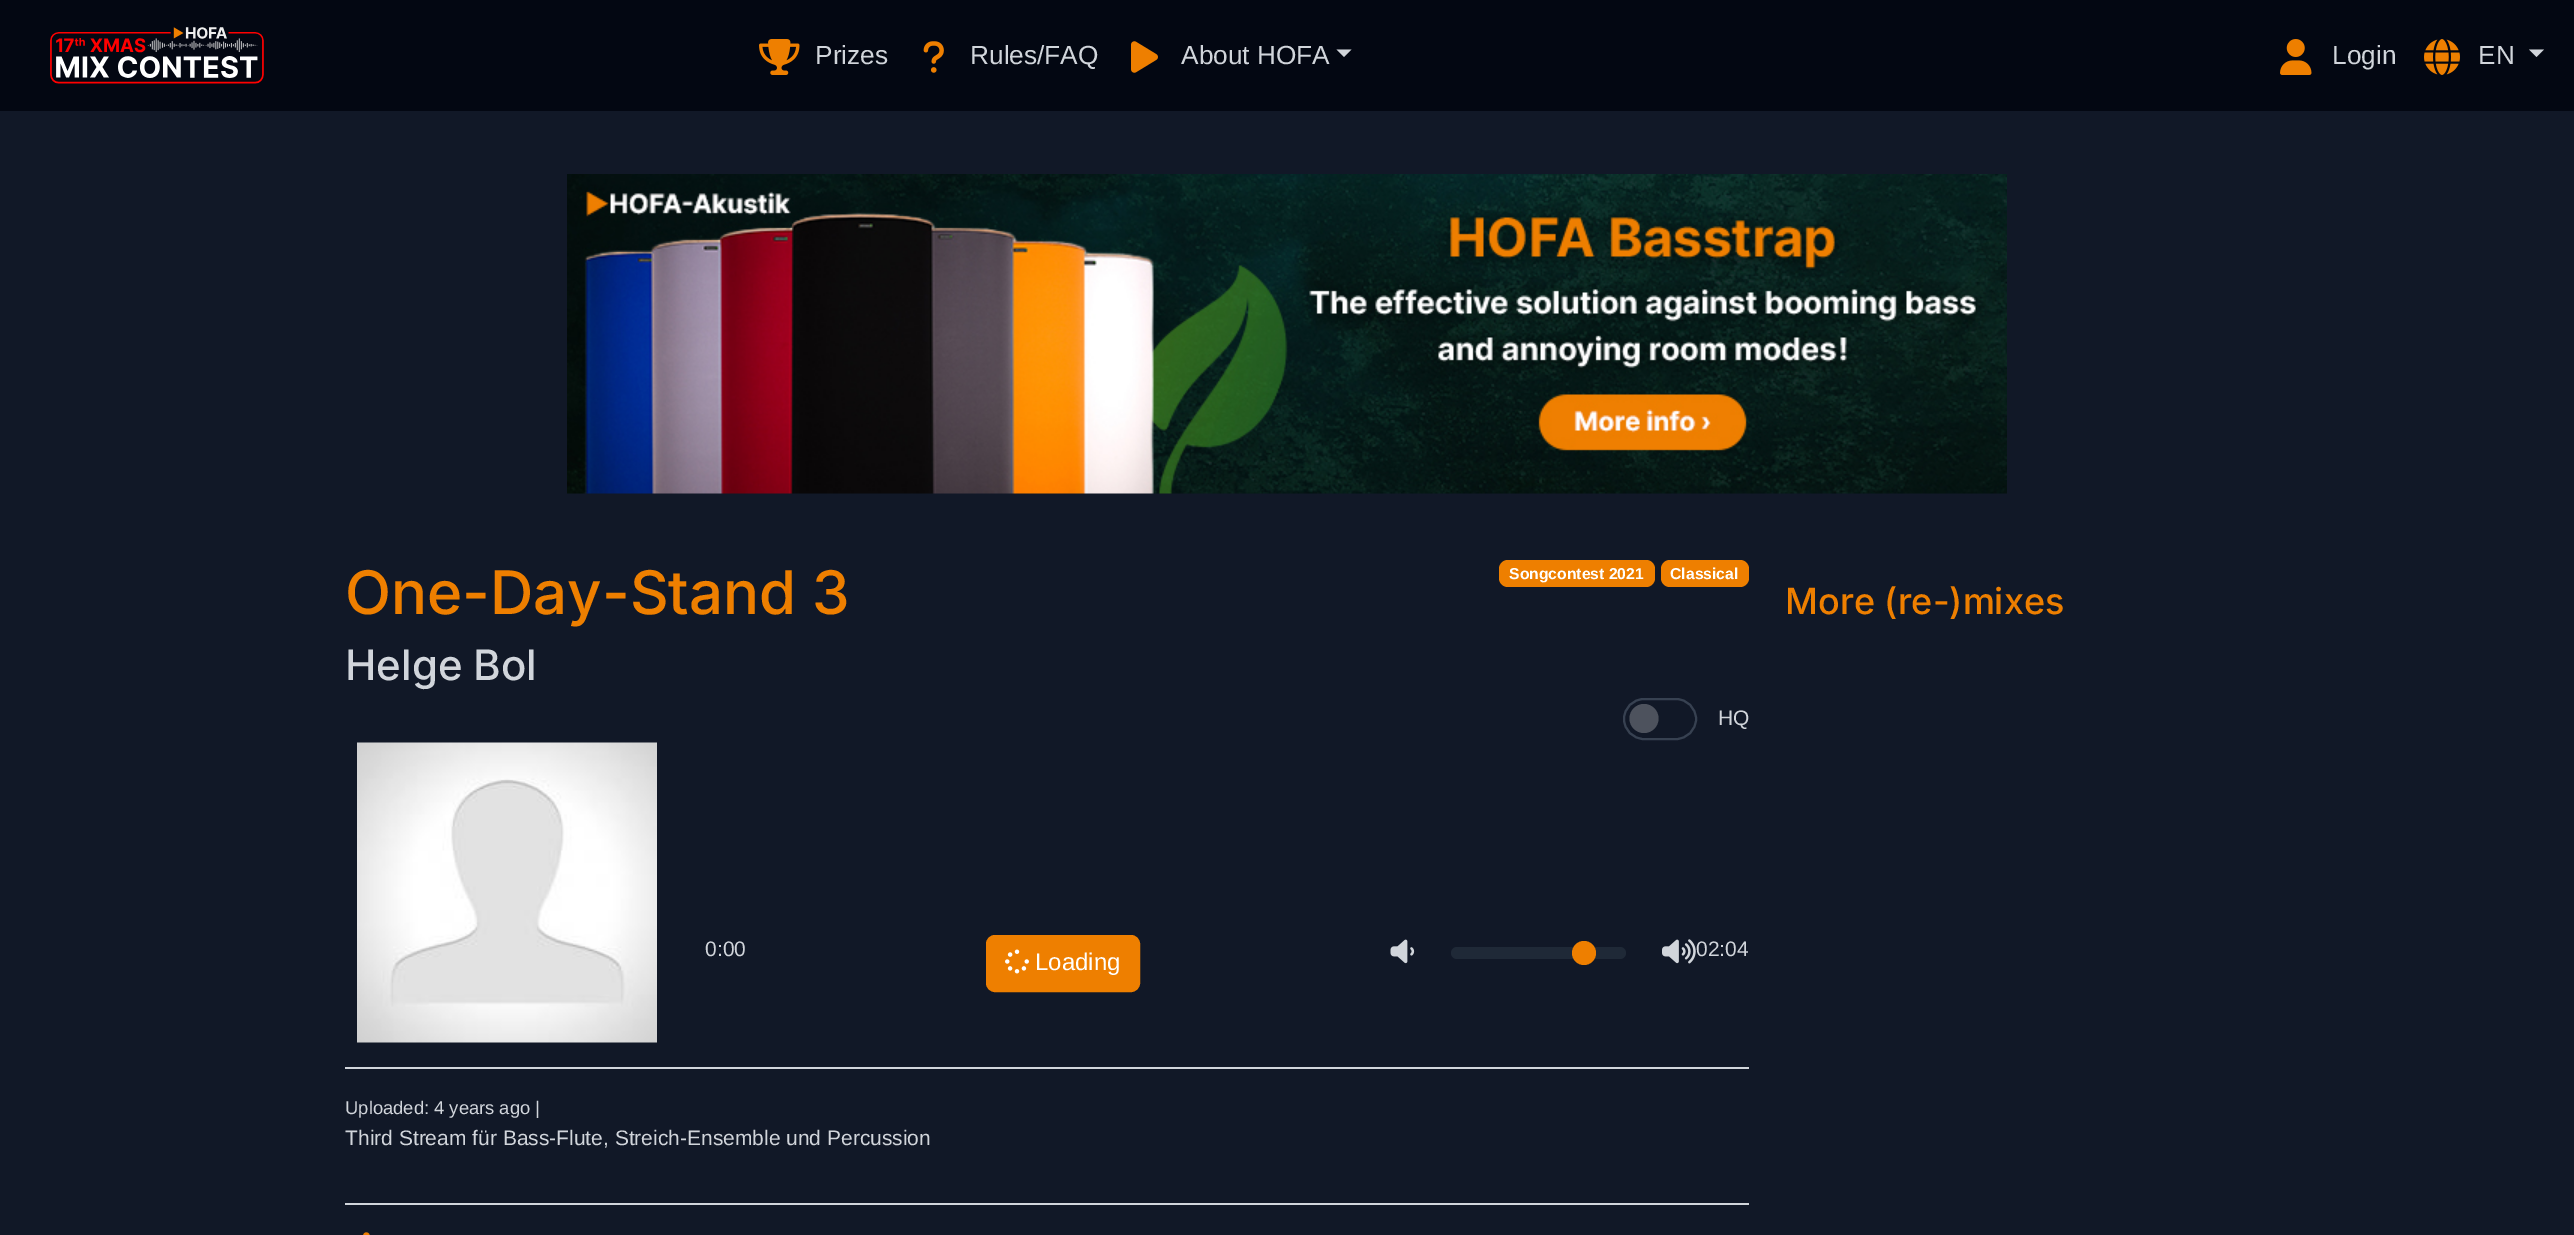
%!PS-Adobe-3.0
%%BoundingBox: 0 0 2574 1235
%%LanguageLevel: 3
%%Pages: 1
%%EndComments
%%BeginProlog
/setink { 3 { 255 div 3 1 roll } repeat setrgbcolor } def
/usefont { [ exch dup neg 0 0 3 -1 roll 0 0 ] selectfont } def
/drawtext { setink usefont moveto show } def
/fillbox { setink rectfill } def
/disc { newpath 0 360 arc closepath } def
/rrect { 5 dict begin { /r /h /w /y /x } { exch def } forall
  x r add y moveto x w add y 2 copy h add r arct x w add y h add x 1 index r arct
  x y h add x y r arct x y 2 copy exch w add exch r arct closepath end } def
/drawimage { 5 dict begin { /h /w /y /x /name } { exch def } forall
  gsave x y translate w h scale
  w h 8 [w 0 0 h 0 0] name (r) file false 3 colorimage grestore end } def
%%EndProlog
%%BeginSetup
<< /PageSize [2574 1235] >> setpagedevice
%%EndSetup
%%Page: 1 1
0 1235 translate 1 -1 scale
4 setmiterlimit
0 0 2574 1235 17 24 39 fillbox
0 0 2574 111 3 7 18 fillbox
(assets/img1.rgb) 50 27 214 57 drawimage
(assets/img2.rgb) 759 39 41 36 drawimage
(Prizes) 815 64 /LiberationSans-Regular 26.25 209 213 219 drawtext
(assets/img3.rgb) 923 41 21 32 drawimage
(Rules/FAQ) 970 64 /LiberationSans-Regular 26.25 209 213 219 drawtext
(assets/img4.rgb) 1131 41 27 32 drawimage
(About HOFA) 1181 64 /LiberationSans-Regular 26.25 209 213 219 drawtext
1336.5 49.5 moveto 1351.5 49.5 lineto 1344 57 lineto closepath fill
(assets/img5.rgb) 2280 39 32 36 drawimage
(Login) 2332 64 /LiberationSans-Regular 26.25 209 213 219 drawtext
(assets/img6.rgb) 2424 39 36 36 drawimage
(EN) 2478 64 /LiberationSans-Regular 26.25 209 213 219 drawtext
2529 49.5 moveto 2544 49.5 lineto 2536.5 57 lineto closepath fill
(assets/img7.rgb) 567 174 1440 320 drawimage
(One-Day-Stand 3) 345 614 /Inter-Medium 60 238 127 0 drawtext
1499 560 156 27 9 rrect fill
(Songcontest 2021) 1509 579 /LiberationSans-Bold 15.75 255 255 255 drawtext
238 127 0 setink
1661 560 88 27 9 rrect fill
(Classical) 1670 579 /LiberationSans-Bold 15.75 255 255 255 drawtext
(Helge Bol) 345 680 /Inter-Medium 42 209 213 219 drawtext
77 82 93 setink
1644 718.5 14.5 disc fill
55 65 81 setink
2 setlinewidth
1624 699 72 40 20 rrect stroke
(HQ) 1718 725 /LiberationSans-Regular 21 209 213 219 drawtext
(assets/img8.rgb) 357 742 300 301 drawimage
(0:00) 705 956 /LiberationSans-Regular 21 209 213 219 drawtext
(02:04) 1696 956 /LiberationSans-Regular 21 209 213 219 drawtext
238 127 0 setink
987 936 152 55 8 rrect gsave fill grestore
stroke
(assets/img9.rgb) 1005 949 24 25 drawimage
(Loading) 1035 970 /LiberationSans-Regular 24 255 255 255 drawtext
(assets/img10.rgb) 1390 939 25 25 drawimage
31 41 55 setink
1451 947 175 12 6 rrect fill
238 127 0 setink
1584 953 12 disc fill
(assets/img11.rgb) 1662 939 34 25 drawimage
345 1067 1404 2 209 213 219 fillbox
(Uploaded: 4 years ago |) 345 1114 /LiberationSans-Regular 18.4 209 213 219 drawtext
(Third Stream für Bass-Flute, Streich-Ensemble und Percussion) 345 1145 /LiberationSans-Regular 21 209 213 219 drawtext
345 1203 1404 2 209 213 219 fillbox
(assets/img12.rgb) 363 1232 7 3 drawimage
(More \(re-\)mixes) 1785 614 /Inter-Medium 36 238 127 0 drawtext
showpage
%%EOF
